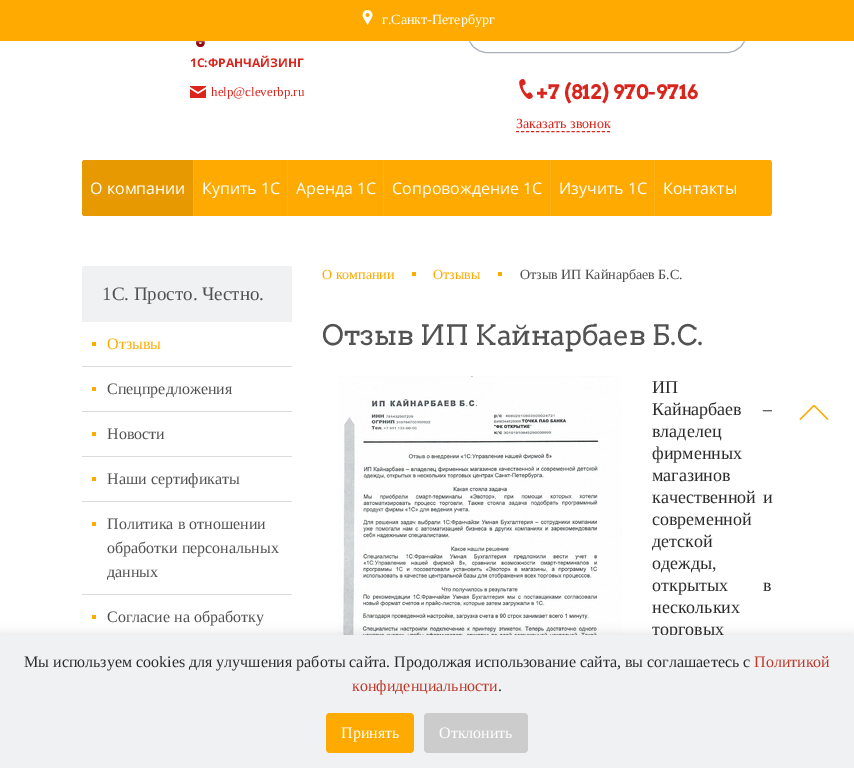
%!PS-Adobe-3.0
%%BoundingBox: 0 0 854 768
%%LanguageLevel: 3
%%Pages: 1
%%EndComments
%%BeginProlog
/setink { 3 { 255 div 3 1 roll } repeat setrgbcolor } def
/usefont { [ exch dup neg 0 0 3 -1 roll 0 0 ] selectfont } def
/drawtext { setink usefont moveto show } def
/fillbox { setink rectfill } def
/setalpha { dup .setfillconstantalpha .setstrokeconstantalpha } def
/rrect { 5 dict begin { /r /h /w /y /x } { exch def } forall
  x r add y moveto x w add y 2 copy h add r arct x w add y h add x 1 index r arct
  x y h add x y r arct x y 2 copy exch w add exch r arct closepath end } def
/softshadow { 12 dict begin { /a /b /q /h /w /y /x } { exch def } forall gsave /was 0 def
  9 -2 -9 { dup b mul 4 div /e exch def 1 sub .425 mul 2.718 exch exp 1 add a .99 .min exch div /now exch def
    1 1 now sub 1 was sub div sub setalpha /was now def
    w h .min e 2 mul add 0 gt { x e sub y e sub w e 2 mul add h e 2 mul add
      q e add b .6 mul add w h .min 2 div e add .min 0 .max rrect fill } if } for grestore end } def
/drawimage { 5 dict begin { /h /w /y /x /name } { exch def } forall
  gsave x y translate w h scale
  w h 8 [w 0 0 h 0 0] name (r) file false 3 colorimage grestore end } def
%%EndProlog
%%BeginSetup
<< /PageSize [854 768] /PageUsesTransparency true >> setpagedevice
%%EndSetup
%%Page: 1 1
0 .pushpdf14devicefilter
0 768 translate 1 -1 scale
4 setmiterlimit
0 0 854 768 255 255 255 fillbox
169 178 187 setink
467.5 11.5 279 41 19.5 rrect stroke
(assets/img2.rgb) 196 41 9 6 drawimage
255 255 255 setink
0 1 854 41 0 0.5 0.3 softshadow
0 0 854 41 255 170 0 fillbox
(assets/img1.rgb) 362 10 11 15 drawimage
(г.Санкт-Петербург) 382 24 /LiberationSerif-Regular 14 255 255 255 drawtext
(1С:ФРАНЧАЙЗИНГ) 190 67 /OpenSans-Bold 12 218 37 29 drawtext
(assets/img3.rgb) 190 86 16 12 drawimage
(help@cleverbp.ru) 211 96 /LiberationSerif-Regular 13 218 37 29 drawtext
(assets/img4.rgb) 519 79 14 20 drawimage
(+7 \(812\) 970-9716) 536 99 /Arvo-Bold 20 218 37 29 drawtext
(Заказать звонок) 516 128 /LiberationSerif-Regular 14 218 37 29 drawtext
[3 2.06] 0 setdash
516 131.5 moveto 610 131.5 lineto stroke
255 170 0 setink
82 160 690 56 3 rrect fill
230 153 0 setink
85 160 moveto 194 160 lineto 194 216 lineto 85 216 lineto 83.5 216 82 214.5 82 213 curveto 82 163 lineto 82 161.5 83.5 160 85 160 curveto closepath fill
(О компании) 90 194 /OpenSans-Regular 16 255 255 255 drawtext
193 160 1 56 255 179 26 fillbox
(Купить 1С) 202 194 /OpenSans-Regular 16 255 255 255 drawtext
287 160 1 56 255 179 26 fillbox
(Аренда 1С) 296 194 /OpenSans-Regular 16 255 255 255 drawtext
383 160 1 56 255 179 26 fillbox
(Сопровождение 1С) 392 194 /OpenSans-Regular 16 255 255 255 drawtext
550 160 1 56 255 179 26 fillbox
(Изучить 1С) 559 194 /OpenSans-Regular 16 255 255 255 drawtext
654 160 1 56 255 179 26 fillbox
(Контакты) 663 194 /OpenSans-Regular 16 255 255 255 drawtext
82 266 210 56 239 241 242 fillbox
(1С. Просто. Честно.) 102 300 /LiberationSerif-Regular 19 82 82 82 drawtext
82 366 210 1 216 220 223 fillbox
92 342 4 4 255 170 0 fillbox
(Отзывы) 107 349 /LiberationSerif-Regular 16 255 170 0 drawtext
82 411 210 1 216 220 223 fillbox
92 387 4 4 255 170 0 fillbox
(Спецпредложения) 107 394 /LiberationSerif-Regular 16 82 82 82 drawtext
82 456 210 1 216 220 223 fillbox
92 432 4 4 255 170 0 fillbox
(Новости) 107 439 /LiberationSerif-Regular 16 82 82 82 drawtext
82 501 210 1 216 220 223 fillbox
92 477 4 4 255 170 0 fillbox
(Наши сертификаты) 107 484 /LiberationSerif-Regular 16 82 82 82 drawtext
82 594 210 1 216 220 223 fillbox
92 522 4 4 255 170 0 fillbox
(Политика в отношении) 107 529 /LiberationSerif-Regular 16 82 82 82 drawtext
(обработки персональных) 107 553 /LiberationSerif-Regular 16 82 82 82 drawtext
(данных) 107 577 /LiberationSerif-Regular 16 82 82 82 drawtext
92 615 4 4 255 170 0 fillbox
(Согласие на обработку) 107 622 /LiberationSerif-Regular 16 82 82 82 drawtext
(О компании) 322 279 /LiberationSerif-Regular 14 255 170 0 drawtext
412 272 4 4 255 170 0 fillbox
(Отзывы) 433 279 /LiberationSerif-Regular 14 255 170 0 drawtext
498 272 4 4 255 170 0 fillbox
(Отзыв ИП Кайнарбаев Б.С.) 520 279 /LiberationSerif-Regular 14 82 82 82 drawtext
(Отзыв ИП Кайнарбаев Б.С.) 322 345 /Arvo-Regular 28 82 82 82 drawtext
(assets/img5.rgb) 338 376 284 259 drawimage
(ИП) 652 393 /LiberationSerif-Regular 18 45 45 45 drawtext
652 415 moveto 17 0 32 (Кайнарбаев –) widthshow
(владелец) 652 437 /LiberationSerif-Regular 18 45 45 45 drawtext
(фирменных) 652 459 /LiberationSerif-Regular 18 45 45 45 drawtext
(магазинов) 652 481 /LiberationSerif-Regular 18 45 45 45 drawtext
652 503 moveto 2 0 32 (качественной и) widthshow
(современной) 652 525 /LiberationSerif-Regular 18 45 45 45 drawtext
(детской) 652 547 /LiberationSerif-Regular 18 45 45 45 drawtext
(одежды,) 652 569 /LiberationSerif-Regular 18 45 45 45 drawtext
652 591 moveto 31 0 32 (открытых в) widthshow
(нескольких) 652 613 /LiberationSerif-Regular 18 45 45 45 drawtext
(торговых) 652 635 /LiberationSerif-Regular 18 45 45 45 drawtext
255 170 0 setink
799.5 419 moveto 813.5 405 lineto 814.5 406 lineto 800.5 420 lineto closepath fill
814.5 405 moveto 828.5 419 lineto 827.5 420 lineto 813.5 406 lineto closepath fill
0 0 0 setink
0 633 854 133 0 5 0.1 softshadow
0 635 854 133 239 241 242 fillbox
(Мы используем cookies для улучшения работы сайта. Продолжая использование сайта, вы соглашаетесь с) 24 667 /LiberationSerif-Regular 16 45 45 45 drawtext
(Политикой) 754 667 /LiberationSerif-Regular 16 191 57 43 drawtext
(конфиденциальности) 352 691 /LiberationSerif-Regular 16 191 57 43 drawtext
(.) 498 691 /LiberationSerif-Regular 16 45 45 45 drawtext
255 170 0 setink
326 713 88 40 4 rrect fill
(Принять) 341 738 /LiberationSerif-Regular 16 255 255 255 drawtext
204 204 204 setink
424 713 104 40 4 rrect fill
(Отклонить) 439 738 /LiberationSerif-Regular 16 255 255 255 drawtext
.poppdf14devicefilter showpage
%%EOF
